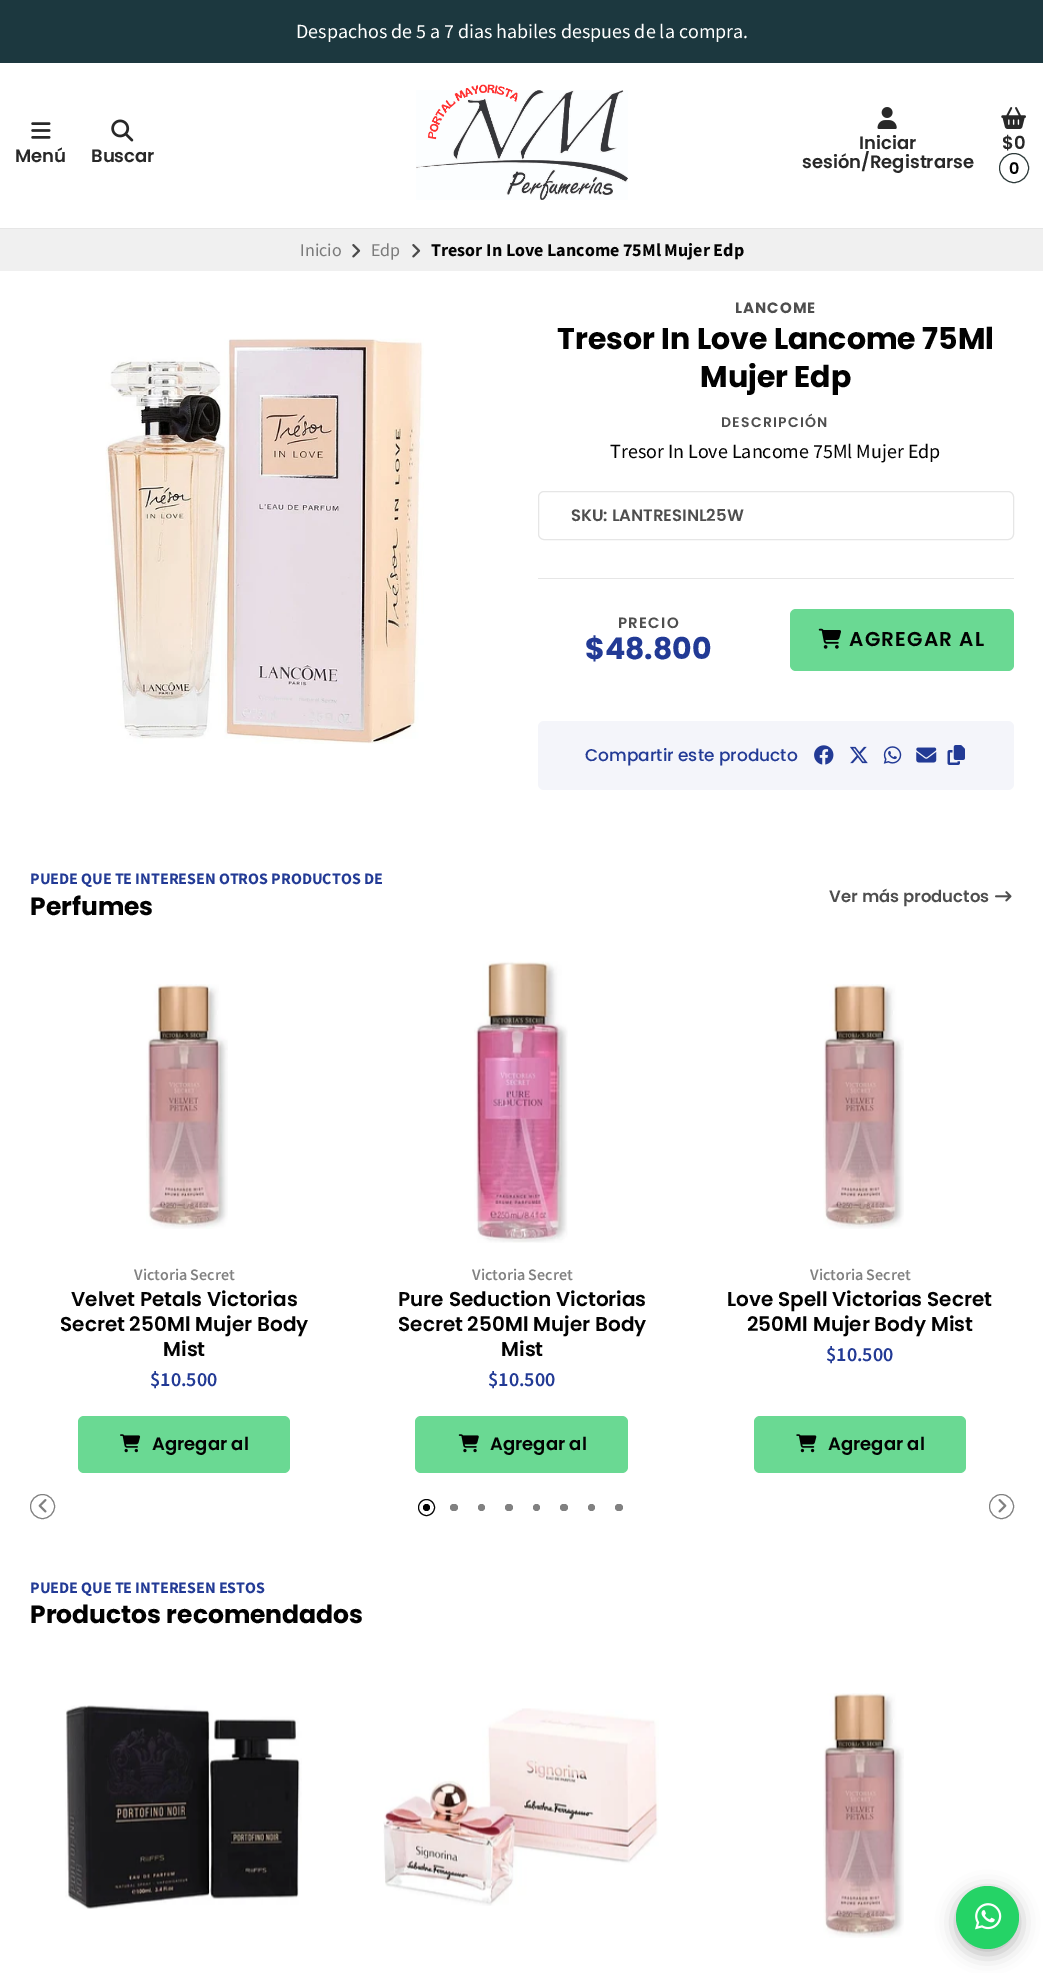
%!PS-Adobe-3.0
%%BoundingBox: 0 0 1043 1973
%%LanguageLevel: 3
%%Pages: 1
%%EndComments
%%BeginProlog
/setink { 3 { 255 div 3 1 roll } repeat setrgbcolor } def
/usefont { [ exch dup neg 0 0 3 -1 roll 0 0 ] selectfont } def
/drawtext { setink usefont moveto show } def
/fillbox { setink rectfill } def
/setalpha { dup .setfillconstantalpha .setstrokeconstantalpha } def
/disc { newpath 0 360 arc closepath } def
/rrect { 5 dict begin { /r /h /w /y /x } { exch def } forall
  x r add y moveto x w add y 2 copy h add r arct x w add y h add x 1 index r arct
  x y h add x y r arct x y 2 copy exch w add exch r arct closepath end } def
/softshadow { 12 dict begin { /a /b /q /h /w /y /x } { exch def } forall gsave /was 0 def
  9 -2 -9 { dup b mul 4 div /e exch def 1 sub .425 mul 2.718 exch exp 1 add a .99 .min exch div /now exch def
    1 1 now sub 1 was sub div sub setalpha /was now def
    w h .min e 2 mul add 0 gt { x e sub y e sub w e 2 mul add h e 2 mul add
      q e add b .6 mul add w h .min 2 div e add .min 0 .max rrect fill } if } for grestore end } def
/drawimage { 5 dict begin { /h /w /y /x /name } { exch def } forall
  gsave x y translate w h scale
  w h 8 [w 0 0 h 0 0] name (r) file false 3 colorimage grestore end } def
%%EndProlog
%%BeginSetup
<< /PageSize [1043 1973] /PageUsesTransparency true >> setpagedevice
%%EndSetup
%%Page: 1 1
0 .pushpdf14devicefilter
0 1973 translate 1 -1 scale
4 setmiterlimit
0 0 1043 1973 255 255 255 fillbox
0 228 1043 1 230 230 230 fillbox
0 0 1043 63 28 56 63 fillbox
(Despachos de 5 a 7 dias habiles despues de la compra.) 296 38 /SourceSansPro-Regular 20 255 255 255 drawtext
(assets/img1.rgb) 31 122 20 17 drawimage
(Menú) 15 162 /Poppins-SemiBold 18 40 40 40 drawtext
(assets/img2.rgb) 111 119 23 23 drawimage
(Buscar) 91 162 /Poppins-SemiBold 18 40 40 40 drawtext
(assets/img3.rgb) 416 84 212 116 drawimage
(assets/img4.rgb) 877 107 20 22 drawimage
(Iniciar) 859 149 /Poppins-SemiBold 18 40 40 40 drawtext
(sesión/Registrarse) 802 168 /Poppins-SemiBold 18 40 40 40 drawtext
(assets/img5.rgb) 1001 107 25 22 drawimage
($0) 1002 149 /Poppins-SemiBold 18 40 40 40 drawtext
45 58 58 setink
1014 168 14.5 disc stroke
(0) 1009 174 /Poppins-SemiBold 16 2 2 2 drawtext
0 229 1043 42 240 240 240 fillbox
(Inicio) 300 256 /SourceSansPro-Regular 18 123 123 123 drawtext
(assets/img6.rgb) 352 244 9 14 drawimage
(Edp) 371 256 /SourceSansPro-Regular 18 123 123 123 drawtext
(assets/img6.rgb) 412 244 9 14 drawimage
(Tresor In Love Lancome 75Ml Mujer Edp) 431 256 /SourceSansPro-Bold 18 2 2 2 drawtext
(assets/img7.rgb) 105 338 319 406 drawimage
/Poppins-Bold 15 usefont
78 78 78 setink
735 313 moveto 1 0 (LANCOME) ashow
(Tresor In Love Lancome 75Ml) 557 349 /Poppins-Bold 30 2 2 2 drawtext
(Mujer Edp) 700 387 /Poppins-Bold 30 2 2 2 drawtext
/Poppins-SemiBold 14 usefont
78 78 78 setink
721 427 moveto 1.25 0 (DESCRIPCIÓN) ashow
(Tresor In Love Lancome 75Ml Mujer Edp) 610 458 /SourceSansPro-Regular 20 2 2 2 drawtext
230 230 230 setink
538.5 491.5 475 48 5.5 rrect stroke
(SKU: LANTRESINL25W) 571 521 /Poppins-SemiBold 16.5 78 78 78 drawtext
538 578 476 1 230 230 230 fillbox
/Poppins-SemiBold 15 usefont
78 78 78 setink
618 628 moveto 1.25 0 (PRECIO) ashow
($48.800) 585 659 /Poppins-Bold 30 34 58 149 drawtext
106 217 147 setink
790 609 224 62 6 rrect fill
(assets/img8.rgb) 818 628 23 21 drawimage
/Poppins-SemiBold 20 usefont
2 2 2 setink
849 646 moveto 1.25 0 (AGREGAR AL) ashow
244 245 250 setink
538 721 476 69 6 rrect fill
(Compartir este producto) 585 761 /Poppins-Medium 17 34 58 149 drawtext
(assets/img9.rgb) 814 745 20 20 drawimage
(assets/img10.rgb) 850 746 18 18 drawimage
(assets/img11.rgb) 883 746 19 18 drawimage
(assets/img12.rgb) 916 747 21 16 drawimage
(assets/img13.rgb) 947 745 18 20 drawimage
(PUEDE QUE TE INTERESEN OTROS PRODUCTOS DE) 30 884 /SourceSansPro-Bold 16 34 58 149 drawtext
(Perfumes) 30 915 /Poppins-Bold 25 2 2 2 drawtext
(Ver más productos) 829 902 /Poppins-SemiBold 16.5 78 78 78 drawtext
(assets/img14.rgb) 995 891 17 11 drawimage
(assets/img15.rgb) 146 984 82 245 drawimage
(Victoria Secret) 134 1280 /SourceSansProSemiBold-SemiBold 16 129 129 129 drawtext
(Velvet Petals Victorias) 71 1306 /Poppins-SemiBold 20 2 2 2 drawtext
(Secret 250Ml Mujer Body) 60 1331 /Poppins-SemiBold 20 2 2 2 drawtext
(Mist) 163 1356 /Poppins-SemiBold 20 2 2 2 drawtext
($10.500) 150 1386 /SourceSansProSemiBold-SemiBold 20 34 58 149 drawtext
106 217 147 setink
78 1416 212 57 6 rrect fill
(assets/img16.rgb) 120 1434 21 19 drawimage
(Agregar al) 152 1450 /Poppins-SemiBold 18 2 2 2 drawtext
(assets/img17.rgb) 474 961 94 282 drawimage
(Victoria Secret) 472 1280 /SourceSansProSemiBold-SemiBold 16 129 129 129 drawtext
(Pure Seduction Victorias) 398 1306 /Poppins-SemiBold 20 2 2 2 drawtext
(Secret 250Ml Mujer Body) 398 1331 /Poppins-SemiBold 20 2 2 2 drawtext
(Mist) 501 1356 /Poppins-SemiBold 20 2 2 2 drawtext
($10.500) 488 1386 /SourceSansProSemiBold-SemiBold 20 34 58 149 drawtext
106 217 147 setink
415 1416 213 57 6 rrect fill
(assets/img18.rgb) 458 1434 21 19 drawimage
(Agregar al) 490 1450 /Poppins-SemiBold 18 2 2 2 drawtext
(assets/img19.rgb) 823 984 81 245 drawimage
(Victoria Secret) 810 1280 /SourceSansProSemiBold-SemiBold 16 129 129 129 drawtext
(Love Spell Victorias Secret) 727 1306 /Poppins-SemiBold 20 2 2 2 drawtext
(250Ml Mujer Body Mist) 747 1331 /Poppins-SemiBold 20 2 2 2 drawtext
($10.500) 826 1361 /SourceSansProSemiBold-SemiBold 20 34 58 149 drawtext
106 217 147 setink
754 1416 212 57 6 rrect fill
(assets/img20.rgb) 796 1434 21 19 drawimage
(Agregar al) 828 1450 /Poppins-SemiBold 18 2 2 2 drawtext
129 129 129 setink
42.5 1506.5 12 disc stroke
(assets/img21.rgb) 38 1499 9 14 drawimage
2 2 2 setink
426.5 1507.5 8 disc stroke
426.5 1507.5 3.5 disc fill
129 129 129 setink
450 1504 8 7 3.5 rrect fill
481.5 1507.5 3.5 disc fill
505 1504 8 7 3.5 rrect fill
536.5 1507.5 3.5 disc fill
560 1504 8 7 3.5 rrect fill
591.5 1507.5 3.5 disc fill
615 1504 8 7 3.5 rrect fill
1001.5 1506.5 12 disc stroke
(assets/img22.rgb) 998 1499 9 14 drawimage
(PUEDE QUE TE INTERESEN ESTOS) 30 1593 /SourceSansPro-Bold 16 34 58 149 drawtext
(Productos recomendados) 30 1623 /Poppins-Bold 25 2 2 2 drawtext
(assets/img23.rgb) 65 1705 237 204 drawimage
(assets/img24.rgb) 383 1708 276 198 drawimage
(assets/img25.rgb) 823 1693 81 245 drawimage
956 1891 63 63 31.5 9.5 0.3 softshadow
37 211 102 setink
987.5 1917.5 31.5 disc fill
(assets/img26.rgb) 975 1903 27 27 drawimage
.poppdf14devicefilter showpage
%%EOF
